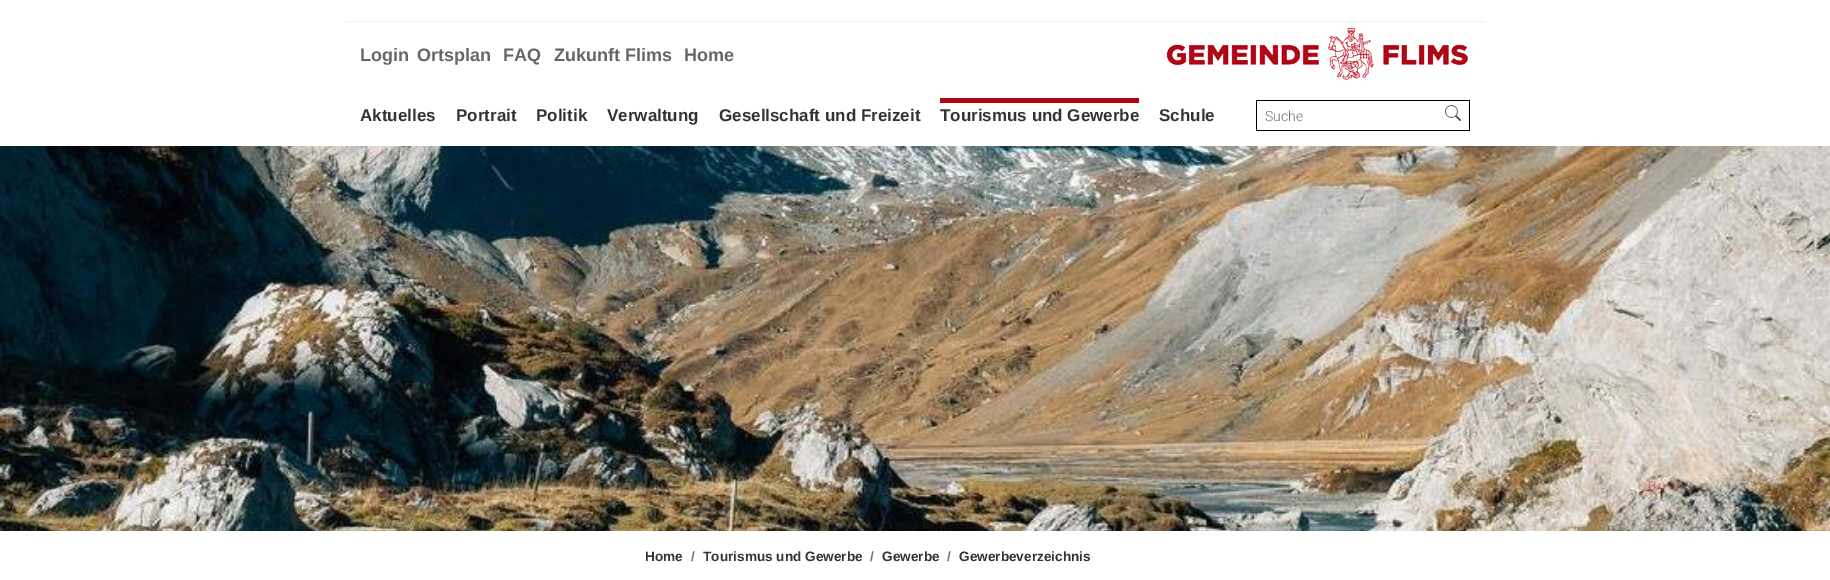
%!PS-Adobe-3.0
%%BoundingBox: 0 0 1830 580
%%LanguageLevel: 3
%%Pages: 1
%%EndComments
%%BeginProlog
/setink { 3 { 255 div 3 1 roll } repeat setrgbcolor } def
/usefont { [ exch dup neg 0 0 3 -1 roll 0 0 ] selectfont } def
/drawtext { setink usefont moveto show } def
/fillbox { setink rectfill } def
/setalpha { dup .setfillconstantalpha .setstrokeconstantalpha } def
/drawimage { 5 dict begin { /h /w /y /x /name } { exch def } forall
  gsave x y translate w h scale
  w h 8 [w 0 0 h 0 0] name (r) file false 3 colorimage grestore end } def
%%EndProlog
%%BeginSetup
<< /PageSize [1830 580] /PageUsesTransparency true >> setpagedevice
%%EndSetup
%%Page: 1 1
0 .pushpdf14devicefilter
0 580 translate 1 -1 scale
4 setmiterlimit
0 0 1830 580 255 255 255 fillbox
345 21 1140 1 215 215 215 fillbox
0.6 setalpha
255 255 255 setink
350 13 moveto 1480 13 lineto 1483 13 1485 15 1485 18 curveto 1485 22 lineto 345 22 lineto 345 18 lineto 345 15 347 13 350 13 curveto closepath fill
1 setalpha
(Login) 360 61 /LiberationSans-Bold 18 102 102 102 drawtext
(Ortsplan) 417 61 /LiberationSans-Bold 18 102 102 102 drawtext
(FAQ) 503 61 /LiberationSans-Bold 18 102 102 102 drawtext
(Zukunft Flims) 554 61 /LiberationSans-Bold 18 102 102 102 drawtext
(Home) 684 61 /LiberationSans-Bold 18 102 102 102 drawtext
(assets/img1.rgb) 1166 27 302 53 drawimage
(Aktuelles) 360 121 /LiberationSans-Bold 17 51 51 51 drawtext
(Portrait) 456 121 /LiberationSans-Bold 17 51 51 51 drawtext
(Politik) 536 121 /LiberationSans-Bold 17 51 51 51 drawtext
(Verwaltung) 607 121 /LiberationSans-Bold 17 51 51 51 drawtext
(Gesellschaft und Freizeit) 719 121 /LiberationSans-Bold 17 51 51 51 drawtext
940 98 199 5 174 6 21 fillbox
(Tourismus und Gewerbe) 940 121 /LiberationSans-Bold 17 51 51 51 drawtext
(Schule) 1159 121 /LiberationSans-Bold 17 51 51 51 drawtext
1256 100 214 1 0 0 0 fillbox
1256 130 182 1 0 0 0 fillbox
1256 100 1 31 0 0 0 fillbox
(Suche) 1265 121 /Roboto-Light 14 108 117 125 drawtext
1469 100 1 31 0 0 0 fillbox
1437 130 33 1 0 0 0 fillbox
(assets/img2.rgb) 1445 105 16 16 drawimage
(assets/img3.rgb) 0 146 1830 385 drawimage
(Home) 645 561 /LiberationSans-Bold 13.6 51 51 51 drawtext
(/) 691 561 /LiberationSans-Bold 13.6 108 117 125 drawtext
(Tourismus und Gewerbe) 703 561 /LiberationSans-Bold 13.6 51 51 51 drawtext
(/) 870 561 /LiberationSans-Bold 13.6 108 117 125 drawtext
(Gewerbe) 882 561 /LiberationSans-Bold 13.6 51 51 51 drawtext
(/) 947 561 /LiberationSans-Bold 13.6 108 117 125 drawtext
(Gewerbeverzeichnis) 959 561 /LiberationSans-Bold 13.6 51 51 51 drawtext
.poppdf14devicefilter showpage
%%EOF
